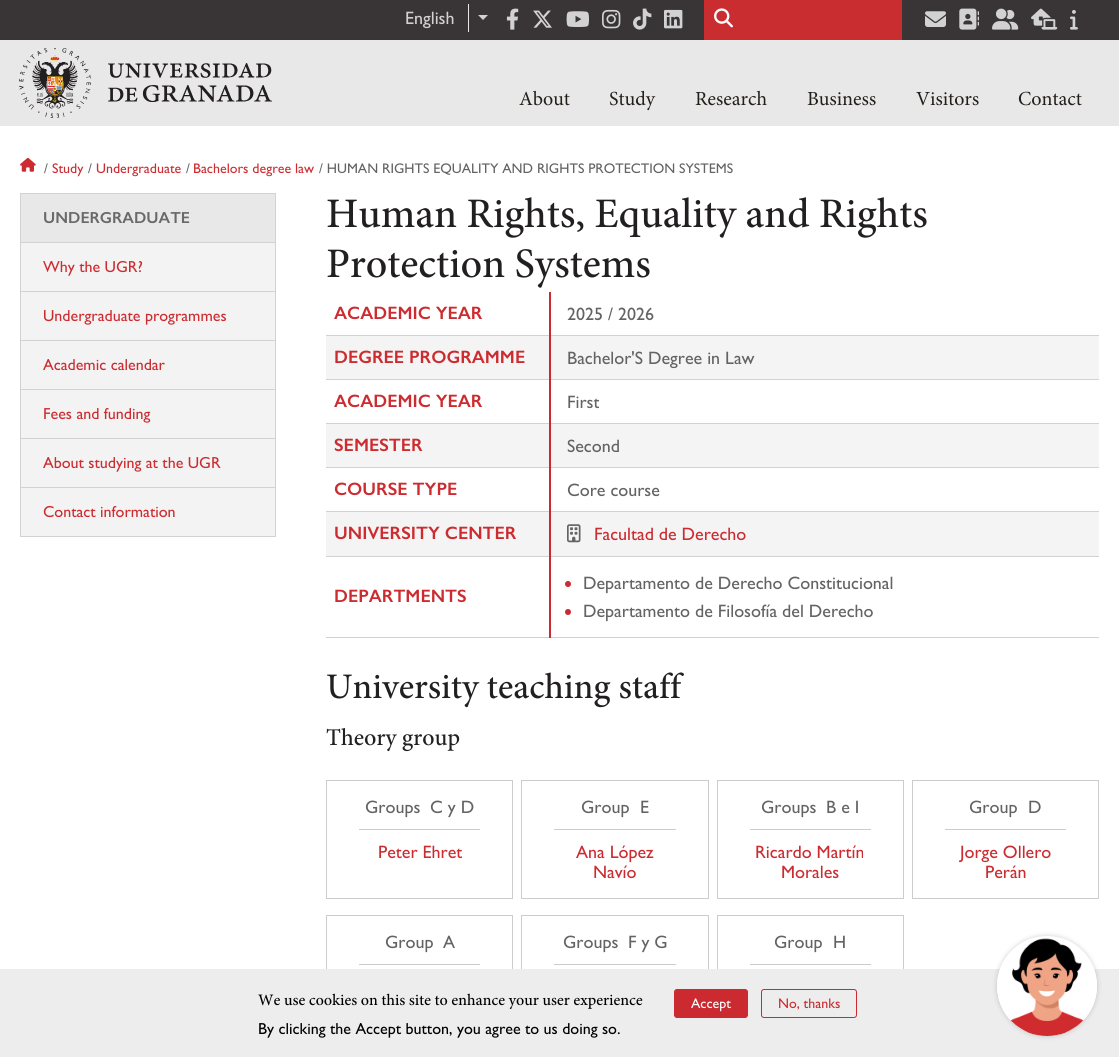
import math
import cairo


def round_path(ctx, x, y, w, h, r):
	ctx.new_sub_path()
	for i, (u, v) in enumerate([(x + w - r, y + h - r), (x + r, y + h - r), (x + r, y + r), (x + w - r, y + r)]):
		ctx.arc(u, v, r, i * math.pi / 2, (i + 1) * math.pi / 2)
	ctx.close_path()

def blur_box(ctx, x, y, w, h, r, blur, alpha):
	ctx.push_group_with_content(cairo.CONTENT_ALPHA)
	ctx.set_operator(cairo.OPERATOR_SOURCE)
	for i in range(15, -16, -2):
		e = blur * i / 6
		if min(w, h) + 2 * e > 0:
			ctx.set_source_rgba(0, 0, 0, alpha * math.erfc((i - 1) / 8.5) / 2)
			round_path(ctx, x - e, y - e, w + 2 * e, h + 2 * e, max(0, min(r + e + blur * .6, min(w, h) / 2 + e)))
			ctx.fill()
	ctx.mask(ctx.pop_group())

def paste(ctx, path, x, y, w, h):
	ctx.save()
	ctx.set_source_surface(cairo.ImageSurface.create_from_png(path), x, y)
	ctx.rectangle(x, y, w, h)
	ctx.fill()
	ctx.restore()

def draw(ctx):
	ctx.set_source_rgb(1, 1, 1)
	ctx.paint()
	ctx.set_source_rgb(0.914, 0.91, 0.91)
	ctx.rectangle(0, 40, 1119, 86)
	ctx.fill()
	ctx.set_source_rgb(0.224, 0.208, 0.212)
	ctx.rectangle(0, 0, 1119, 40)
	ctx.fill()
	ctx.set_source_rgb(0.91, 0.91, 0.91)
	ctx.rectangle(468, 4, 1, 28)
	ctx.fill()
	ctx.select_font_face('Gill Sans')
	ctx.set_font_size(18)
	ctx.set_source_rgb(0.827, 0.824, 0.82)
	ctx.move_to(405, 24)
	ctx.show_text('English')
	ctx.new_path()
	ctx.move_to(478, 15)
	ctx.line_to(488, 15)
	ctx.line_to(483, 20)
	ctx.close_path()
	ctx.fill()
	paste(ctx, 'media/1.png', 506, 8, 13, 22)
	paste(ctx, 'media/2.png', 533, 10, 19, 18)
	paste(ctx, 'media/3.png', 566, 11, 23, 16)
	paste(ctx, 'media/4.png', 602, 9, 19, 20)
	paste(ctx, 'media/5.png', 633, 8, 19, 22)
	paste(ctx, 'media/6.png', 664, 9, 19, 20)
	ctx.set_source_rgb(0.792, 0.176, 0.188)
	ctx.rectangle(704, 0, 198, 40)
	ctx.fill()
	paste(ctx, 'media/7.png', 714, 8, 19, 20)
	paste(ctx, 'media/8.png', 925, 11, 21, 16)
	paste(ctx, 'media/9.png', 959, 8, 20, 22)
	paste(ctx, 'media/10.png', 992, 8, 27, 22)
	paste(ctx, 'media/11.png', 1031, 8, 27, 22)
	paste(ctx, 'media/12.png', 1070, 10, 8, 20)
	paste(ctx, 'media/13.png', 19, 48, 253, 70)
	paste(ctx, 'media/14.png', 519, 90, 51, 16)
	paste(ctx, 'media/15.png', 609, 90, 47, 21)
	paste(ctx, 'media/16.png', 695, 90, 72, 16)
	paste(ctx, 'media/17.png', 807, 92, 69, 14)
	paste(ctx, 'media/18.png', 916, 92, 63, 14)
	paste(ctx, 'media/19.png', 1018, 91, 64, 15)
	paste(ctx, 'media/20.png', 20, 158, 16, 14)
	ctx.set_font_size(14)
	ctx.set_source_rgb(0.396, 0.384, 0.384)
	ctx.move_to(44, 173)
	ctx.show_text('/')
	ctx.set_source_rgb(0.8, 0.173, 0.188)
	ctx.move_to(52, 173)
	ctx.show_text('Study')
	ctx.set_source_rgb(0.396, 0.384, 0.384)
	ctx.move_to(88, 173)
	ctx.show_text('/')
	ctx.set_source_rgb(0.8, 0.173, 0.188)
	ctx.move_to(96, 173)
	ctx.show_text('Undergraduate')
	ctx.set_source_rgb(0.396, 0.384, 0.384)
	ctx.move_to(186, 173)
	ctx.show_text('/')
	ctx.set_source_rgb(0.8, 0.173, 0.188)
	ctx.move_to(193, 173)
	ctx.show_text('Bachelors degree law')
	ctx.set_source_rgb(0.396, 0.384, 0.384)
	ctx.move_to(319, 173)
	ctx.show_text('/ HUMAN RIGHTS EQUALITY AND RIGHTS PROTECTION SYSTEMS')
	ctx.set_source_rgb(0.827, 0.824, 0.824)
	ctx.rectangle(20, 193, 256, 1)
	ctx.rectangle(275, 193, 1, 49)
	ctx.rectangle(20, 193, 1, 49)
	ctx.fill()
	ctx.set_source_rgb(0.91, 0.91, 0.91)
	ctx.rectangle(21, 194, 254, 48)
	ctx.fill()
	ctx.select_font_face('Gill Sans SemiBold')
	ctx.set_font_size(16)
	ctx.set_source_rgb(0.416, 0.408, 0.408)
	ctx.move_to(43, 223)
	ctx.show_text('UNDERGRADUATE')
	ctx.set_source_rgb(0.957, 0.953, 0.953)
	ctx.rectangle(21, 243, 254, 48)
	ctx.fill()
	ctx.set_source_rgb(0.827, 0.824, 0.824)
	ctx.rectangle(20, 242, 256, 1)
	ctx.rectangle(275, 242, 1, 49)
	ctx.rectangle(20, 242, 1, 49)
	ctx.fill()
	ctx.select_font_face('Gill Sans')
	ctx.set_source_rgb(0.8, 0.173, 0.188)
	ctx.move_to(43, 272)
	ctx.show_text('Why the UGR?')
	ctx.set_source_rgb(0.957, 0.953, 0.953)
	ctx.rectangle(21, 292, 254, 48)
	ctx.fill()
	ctx.set_source_rgb(0.827, 0.824, 0.824)
	ctx.rectangle(20, 291, 256, 1)
	ctx.rectangle(275, 291, 1, 49)
	ctx.rectangle(20, 291, 1, 49)
	ctx.fill()
	ctx.set_source_rgb(0.8, 0.173, 0.188)
	ctx.move_to(43, 321)
	ctx.show_text('Undergraduate programmes')
	ctx.set_source_rgb(0.957, 0.953, 0.953)
	ctx.rectangle(21, 341, 254, 48)
	ctx.fill()
	ctx.set_source_rgb(0.827, 0.824, 0.824)
	ctx.rectangle(20, 340, 256, 1)
	ctx.rectangle(275, 340, 1, 49)
	ctx.rectangle(20, 340, 1, 49)
	ctx.fill()
	ctx.set_source_rgb(0.8, 0.173, 0.188)
	ctx.move_to(43, 370)
	ctx.show_text('Academic calendar')
	ctx.set_source_rgb(0.957, 0.953, 0.953)
	ctx.rectangle(21, 390, 254, 48)
	ctx.fill()
	ctx.set_source_rgb(0.827, 0.824, 0.824)
	ctx.rectangle(20, 389, 256, 1)
	ctx.rectangle(275, 389, 1, 49)
	ctx.rectangle(20, 389, 1, 49)
	ctx.fill()
	ctx.set_source_rgb(0.8, 0.173, 0.188)
	ctx.move_to(43, 419)
	ctx.show_text('Fees and funding')
	ctx.set_source_rgb(0.957, 0.953, 0.953)
	ctx.rectangle(21, 439, 254, 48)
	ctx.fill()
	ctx.set_source_rgb(0.827, 0.824, 0.824)
	ctx.rectangle(20, 438, 256, 1)
	ctx.rectangle(275, 438, 1, 49)
	ctx.rectangle(20, 438, 1, 49)
	ctx.fill()
	ctx.set_source_rgb(0.8, 0.173, 0.188)
	ctx.move_to(43, 468)
	ctx.show_text('About studying at the UGR')
	ctx.set_source_rgb(0.957, 0.953, 0.953)
	ctx.rectangle(20.5, 487.5, 255, 49)
	ctx.fill_preserve()
	ctx.set_source_rgb(0.827, 0.824, 0.824)
	ctx.set_line_width(1)
	ctx.stroke()
	ctx.set_source_rgb(0.8, 0.173, 0.188)
	ctx.move_to(43, 517)
	ctx.show_text('Contact information')
	paste(ctx, 'media/21.png', 327, 197, 600, 41)
	paste(ctx, 'media/22.png', 327, 249, 323, 39)
	ctx.set_source_rgb(0.827, 0.824, 0.824)
	ctx.rectangle(326, 335, 773, 1)
	ctx.fill()
	ctx.select_font_face('Gill Sans SemiBold')
	ctx.set_font_size(18)
	ctx.set_source_rgb(0.8, 0.173, 0.188)
	ctx.move_to(334, 319)
	ctx.show_text('ACADEMIC YEAR')
	ctx.select_font_face('Gill Sans')
	ctx.set_source_rgb(0.396, 0.384, 0.384)
	ctx.move_to(567, 320)
	ctx.show_text('2025 / 2026')
	ctx.set_source_rgb(0.957, 0.957, 0.957)
	ctx.rectangle(326, 336, 773, 43)
	ctx.fill()
	ctx.set_source_rgb(0.827, 0.824, 0.824)
	ctx.rectangle(326, 379, 773, 1)
	ctx.fill()
	ctx.select_font_face('Gill Sans SemiBold')
	ctx.set_source_rgb(0.8, 0.173, 0.188)
	ctx.move_to(334, 363)
	ctx.show_text('DEGREE PROGRAMME')
	ctx.select_font_face('Gill Sans')
	ctx.set_source_rgb(0.396, 0.384, 0.384)
	ctx.move_to(567, 364)
	ctx.show_text('Bachelor\'S Degree in Law')
	ctx.set_source_rgb(0.827, 0.824, 0.824)
	ctx.rectangle(326, 423, 773, 1)
	ctx.fill()
	ctx.select_font_face('Gill Sans SemiBold')
	ctx.set_source_rgb(0.8, 0.173, 0.188)
	ctx.move_to(334, 407)
	ctx.show_text('ACADEMIC YEAR')
	ctx.select_font_face('Gill Sans')
	ctx.set_source_rgb(0.396, 0.384, 0.384)
	ctx.move_to(567, 408)
	ctx.show_text('First')
	ctx.set_source_rgb(0.957, 0.957, 0.957)
	ctx.rectangle(326, 424, 773, 43)
	ctx.fill()
	ctx.set_source_rgb(0.827, 0.824, 0.824)
	ctx.rectangle(326, 467, 773, 1)
	ctx.fill()
	ctx.select_font_face('Gill Sans SemiBold')
	ctx.set_source_rgb(0.8, 0.173, 0.188)
	ctx.move_to(334, 451)
	ctx.show_text('SEMESTER')
	ctx.select_font_face('Gill Sans')
	ctx.set_source_rgb(0.396, 0.384, 0.384)
	ctx.move_to(567, 452)
	ctx.show_text('Second')
	ctx.set_source_rgb(0.827, 0.824, 0.824)
	ctx.rectangle(326, 511, 773, 1)
	ctx.fill()
	ctx.select_font_face('Gill Sans SemiBold')
	ctx.set_source_rgb(0.8, 0.173, 0.188)
	ctx.move_to(334, 495)
	ctx.show_text('COURSE TYPE')
	ctx.select_font_face('Gill Sans')
	ctx.set_source_rgb(0.396, 0.384, 0.384)
	ctx.move_to(567, 496)
	ctx.show_text('Core course')
	ctx.set_source_rgb(0.957, 0.957, 0.957)
	ctx.rectangle(326, 512, 773, 44)
	ctx.fill()
	ctx.set_source_rgb(0.827, 0.824, 0.824)
	ctx.rectangle(326, 556, 773, 1)
	ctx.fill()
	ctx.select_font_face('Gill Sans SemiBold')
	ctx.set_source_rgb(0.8, 0.173, 0.188)
	ctx.move_to(334, 539)
	ctx.show_text('UNIVERSITY CENTER')
	paste(ctx, 'media/23.png', 567, 524, 14, 19)
	ctx.select_font_face('Gill Sans')
	ctx.move_to(594, 540)
	ctx.show_text('Facultad de Derecho')
	ctx.set_source_rgb(0.827, 0.824, 0.824)
	ctx.rectangle(326, 637, 773, 1)
	ctx.fill()
	ctx.set_source_rgb(0.796, 0.165, 0.192)
	ctx.rectangle(549, 292, 2, 346)
	ctx.fill()
	ctx.select_font_face('Gill Sans SemiBold')
	ctx.set_source_rgb(0.8, 0.173, 0.188)
	ctx.move_to(334, 602)
	ctx.show_text('DEPARTMENTS')
	ctx.set_source_rgb(0.796, 0.165, 0.192)
	ctx.new_path()
	ctx.arc(568, 584, 3, 0, 2 * math.pi)
	ctx.fill()
	ctx.select_font_face('Gill Sans')
	ctx.set_source_rgb(0.396, 0.384, 0.384)
	ctx.move_to(583, 589)
	ctx.show_text('Departamento de Derecho Constitucional')
	ctx.set_source_rgb(0.796, 0.165, 0.192)
	ctx.new_path()
	ctx.arc(568, 612, 3, 0, 2 * math.pi)
	ctx.fill()
	ctx.set_source_rgb(0.396, 0.384, 0.384)
	ctx.move_to(583, 617)
	ctx.show_text('Departamento de Filosofía del Derecho')
	paste(ctx, 'media/24.png', 327, 672, 357, 36)
	paste(ctx, 'media/25.png', 326, 728, 134, 24)
	ctx.rectangle(326.5, 780.5, 186, 118)
	ctx.set_source_rgb(0.8, 0.8, 0.8)
	ctx.stroke()
	ctx.rectangle(359, 829, 121, 1)
	ctx.fill()
	ctx.set_source_rgb(0.396, 0.384, 0.384)
	ctx.move_to(365, 813)
	ctx.show_text('Groups')
	ctx.move_to(430, 813)
	ctx.show_text('C y D')
	ctx.set_source_rgb(0.8, 0.173, 0.188)
	ctx.move_to(378, 858)
	ctx.show_text('Peter Ehret')
	ctx.rectangle(521.5, 780.5, 187, 118)
	ctx.set_source_rgb(0.8, 0.8, 0.8)
	ctx.stroke()
	ctx.rectangle(554, 829, 122, 1)
	ctx.fill()
	ctx.set_source_rgb(0.396, 0.384, 0.384)
	ctx.move_to(581, 813)
	ctx.show_text('Group')
	ctx.move_to(640, 813)
	ctx.show_text('E')
	ctx.set_source_rgb(0.8, 0.173, 0.188)
	ctx.move_to(576, 858)
	ctx.show_text('Ana López')
	ctx.move_to(593, 878)
	ctx.show_text('Navío')
	ctx.rectangle(717.5, 780.5, 186, 118)
	ctx.set_source_rgb(0.8, 0.8, 0.8)
	ctx.stroke()
	ctx.rectangle(750, 829, 121, 1)
	ctx.fill()
	ctx.set_source_rgb(0.396, 0.384, 0.384)
	ctx.move_to(761, 813)
	ctx.show_text('Groups')
	ctx.move_to(826, 813)
	ctx.show_text('B e I')
	ctx.set_source_rgb(0.8, 0.173, 0.188)
	ctx.move_to(755, 858)
	ctx.show_text('Ricardo Martín')
	ctx.move_to(781, 878)
	ctx.show_text('Morales')
	ctx.rectangle(912.5, 780.5, 186, 118)
	ctx.set_source_rgb(0.8, 0.8, 0.8)
	ctx.stroke()
	ctx.rectangle(945, 829, 121, 1)
	ctx.fill()
	ctx.set_source_rgb(0.396, 0.384, 0.384)
	ctx.move_to(969, 813)
	ctx.show_text('Group')
	ctx.move_to(1028, 813)
	ctx.show_text('D')
	ctx.set_source_rgb(0.8, 0.173, 0.188)
	ctx.move_to(960, 858)
	ctx.show_text('Jorge Ollero')
	ctx.move_to(985, 878)
	ctx.show_text('Perán')
	ctx.rectangle(326.5, 915.5, 186, 118)
	ctx.set_source_rgb(0.8, 0.8, 0.8)
	ctx.stroke()
	ctx.rectangle(359, 964, 121, 1)
	ctx.fill()
	ctx.set_source_rgb(0.396, 0.384, 0.384)
	ctx.move_to(385, 948)
	ctx.show_text('Group')
	ctx.move_to(443, 948)
	ctx.show_text('A')
	ctx.rectangle(521.5, 915.5, 187, 118)
	ctx.set_source_rgb(0.8, 0.8, 0.8)
	ctx.stroke()
	ctx.rectangle(554, 964, 122, 1)
	ctx.fill()
	ctx.set_source_rgb(0.396, 0.384, 0.384)
	ctx.move_to(563, 948)
	ctx.show_text('Groups')
	ctx.move_to(628, 948)
	ctx.show_text('F y G')
	ctx.rectangle(717.5, 915.5, 186, 118)
	ctx.set_source_rgb(0.8, 0.8, 0.8)
	ctx.stroke()
	ctx.rectangle(750, 964, 121, 1)
	ctx.fill()
	ctx.set_source_rgb(0.396, 0.384, 0.384)
	ctx.move_to(774, 948)
	ctx.show_text('Group')
	ctx.move_to(833, 948)
	ctx.show_text('H')
	ctx.set_source_rgb(0.929, 0.929, 0.929)
	ctx.rectangle(0, 969, 1119, 88)
	ctx.fill()
	ctx.set_source_rgb(0.796, 0.165, 0.192)
	round_path(ctx, 674.5, 989.5, 73, 28, 2.5)
	ctx.fill_preserve()
	ctx.stroke()
	ctx.set_font_size(14)
	ctx.set_source_rgb(0.996, 1, 1)
	ctx.move_to(691, 1008)
	ctx.show_text('Accept')
	round_path(ctx, 761.5, 989.5, 95, 28, 2.5)
	ctx.set_source_rgb(0.796, 0.165, 0.192)
	ctx.stroke()
	ctx.set_source_rgb(0.8, 0.173, 0.188)
	ctx.move_to(778, 1008)
	ctx.show_text('No, thanks')
	paste(ctx, 'media/26.png', 258, 993, 385, 16)
	ctx.set_font_size(16)
	ctx.set_source_rgb(0, 0, 0)
	ctx.move_to(258, 1034)
	ctx.show_text('By clicking the Accept button, you agree to us doing so.')
	ctx.set_source_rgb(0, 0, 0)
	blur_box(ctx, 997, 936, 100, 100, 50, 2.5, 0.2)
	ctx.set_source_rgb(1, 1, 1)
	ctx.arc(1047, 986, 50, 0, 2 * math.pi)
	ctx.fill()
	paste(ctx, 'media/27.png', 997, 938, 100, 98)


surface = cairo.ImageSurface(cairo.FORMAT_RGB24, 1119, 1057)
ctx = cairo.Context(surface)
options = cairo.FontOptions()
options.set_hint_metrics(cairo.HINT_METRICS_OFF)
options.set_hint_style(cairo.HINT_STYLE_NONE)
ctx.set_font_options(options)
ctx.set_miter_limit(4)
draw(ctx)
surface.write_to_png('image.png')
